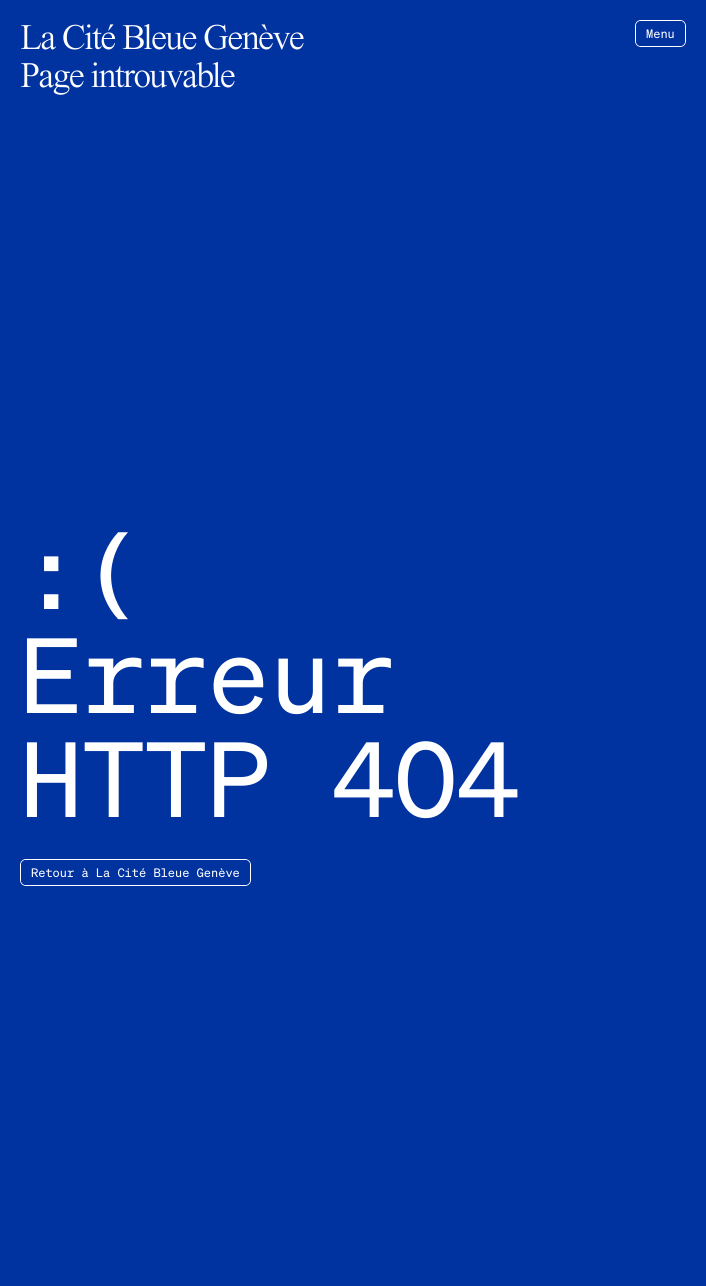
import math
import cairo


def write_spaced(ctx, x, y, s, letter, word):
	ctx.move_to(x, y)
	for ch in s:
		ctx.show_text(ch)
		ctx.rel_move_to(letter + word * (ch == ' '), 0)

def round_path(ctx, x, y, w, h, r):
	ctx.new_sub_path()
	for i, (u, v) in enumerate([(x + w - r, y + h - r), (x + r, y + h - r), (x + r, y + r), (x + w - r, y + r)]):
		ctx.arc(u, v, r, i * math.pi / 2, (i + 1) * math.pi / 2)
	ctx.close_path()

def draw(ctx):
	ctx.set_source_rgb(0, 0.196, 0.627)
	ctx.paint()
	ctx.select_font_face('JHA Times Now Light')
	ctx.set_font_size(36)
	ctx.set_source_rgb(1, 1, 1)
	write_spaced(ctx, 20, 49, 'La Cité Bleue Genève', -1.8, 0)
	round_path(ctx, 635.5, 20.5, 50, 26, 5.5)
	ctx.set_line_width(1)
	ctx.stroke()
	ctx.set_source_rgb(0, 0.196, 0.627)
	round_path(ctx, 636, 21, 49, 25, 5)
	ctx.fill()
	ctx.select_font_face('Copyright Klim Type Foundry')
	ctx.set_font_size(12)
	ctx.set_source_rgb(1, 1, 1)
	ctx.move_to(646, 38)
	ctx.show_text('Menu')
	ctx.select_font_face('JHA Times Now Light')
	ctx.set_font_size(36)
	write_spaced(ctx, 20, 87, 'Page introuvable', -1.8, 0)
	ctx.select_font_face('Copyright Klim Type Foundry')
	ctx.set_font_size(104)
	for x, y, s in [
		(20, 609, ':('),
		(20, 713, 'Erreur'),
		(20, 817, 'HTTP 404'),
	]:
		ctx.move_to(x, y)
		ctx.show_text(s)
	round_path(ctx, 20.5, 859.5, 230, 26, 5.5)
	ctx.stroke()
	ctx.set_source_rgb(0, 0.196, 0.627)
	round_path(ctx, 21, 860, 229, 25, 5)
	ctx.fill()
	ctx.set_font_size(12)
	ctx.set_source_rgb(1, 1, 1)
	ctx.move_to(31, 877)
	ctx.show_text('Retour à La Cité Bleue Genève')


surface = cairo.ImageSurface(cairo.FORMAT_RGB24, 706, 1286)
ctx = cairo.Context(surface)
options = cairo.FontOptions()
options.set_hint_metrics(cairo.HINT_METRICS_OFF)
options.set_hint_style(cairo.HINT_STYLE_NONE)
ctx.set_font_options(options)
ctx.set_miter_limit(4)
draw(ctx)
surface.write_to_png('image.png')
